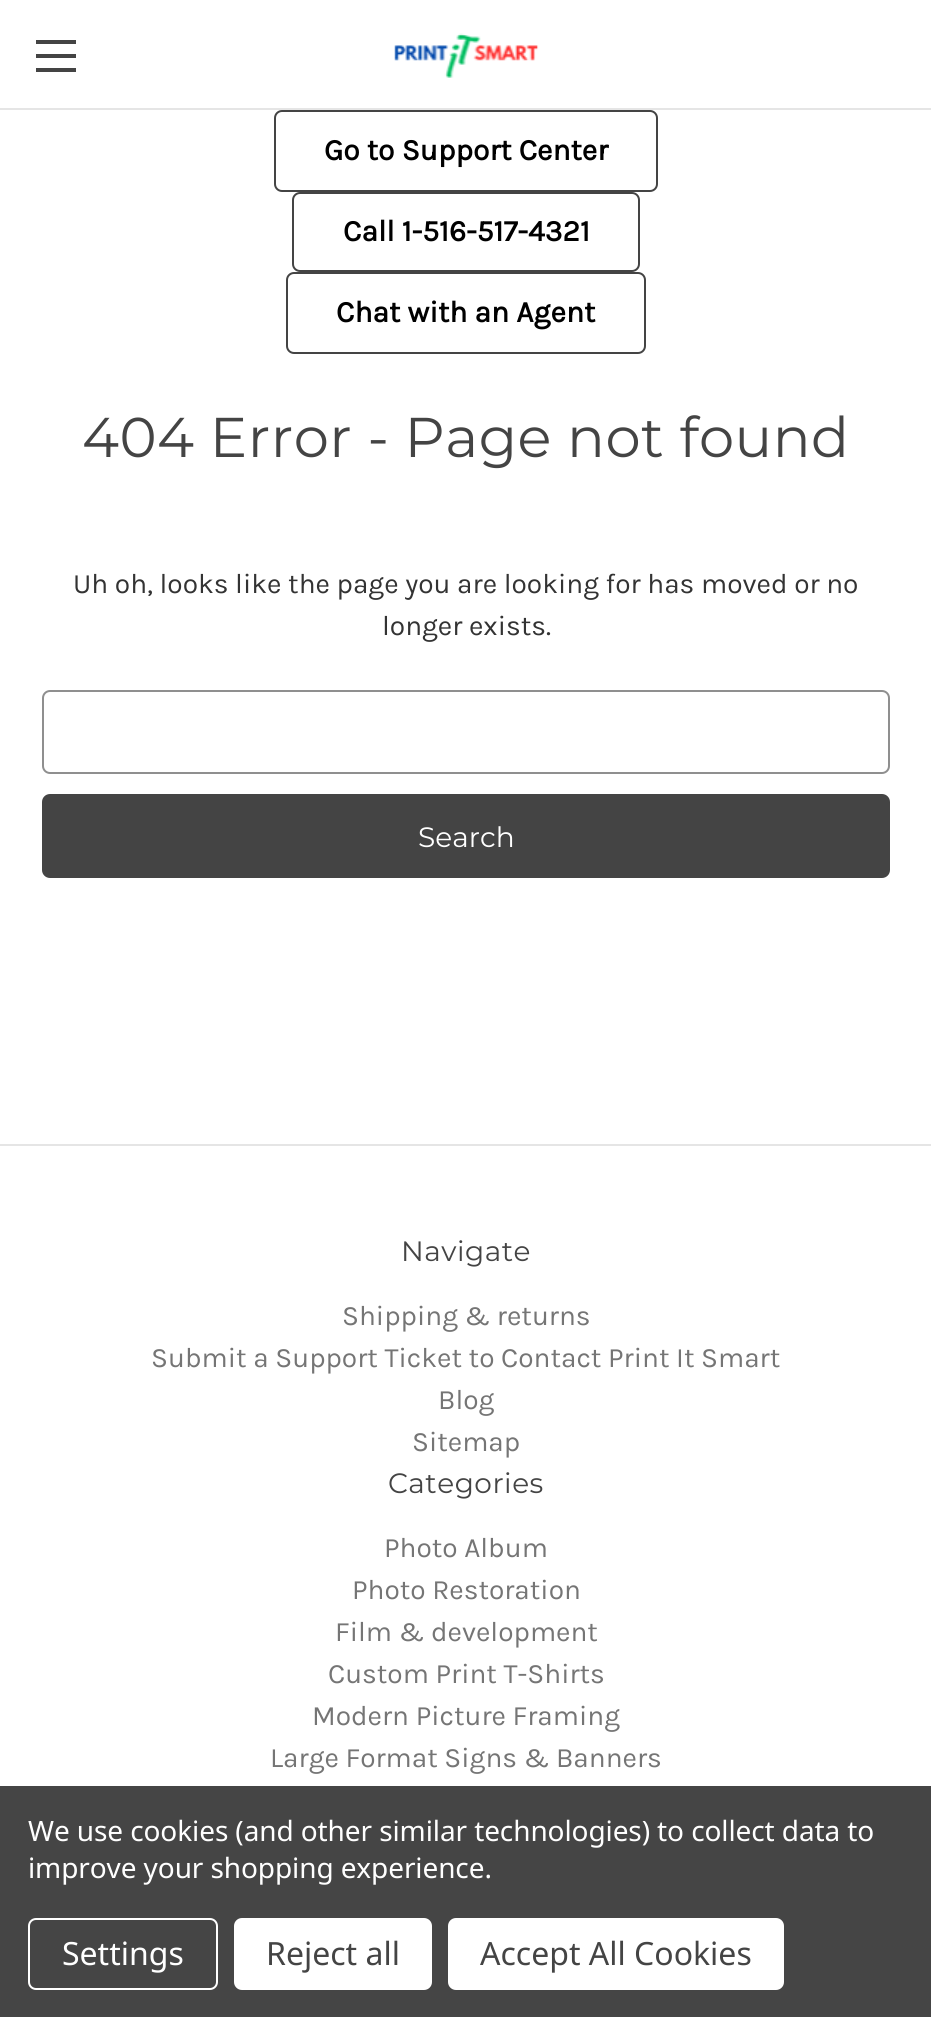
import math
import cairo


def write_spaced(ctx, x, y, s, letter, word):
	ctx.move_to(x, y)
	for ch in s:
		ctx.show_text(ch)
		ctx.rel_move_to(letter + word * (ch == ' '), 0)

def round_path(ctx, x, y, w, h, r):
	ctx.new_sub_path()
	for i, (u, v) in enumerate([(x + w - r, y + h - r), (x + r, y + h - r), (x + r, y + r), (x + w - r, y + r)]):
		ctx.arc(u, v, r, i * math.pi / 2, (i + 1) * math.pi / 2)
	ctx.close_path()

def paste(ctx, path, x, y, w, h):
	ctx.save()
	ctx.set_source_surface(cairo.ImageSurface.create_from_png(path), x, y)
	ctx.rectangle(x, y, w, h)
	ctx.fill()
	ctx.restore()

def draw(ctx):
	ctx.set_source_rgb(1, 1, 1)
	ctx.paint()
	ctx.set_source_rgb(0.898, 0.898, 0.898)
	ctx.rectangle(0, 108, 931, 2)
	ctx.fill()
	ctx.set_source_rgb(0.267, 0.267, 0.267)
	ctx.rectangle(36, 54, 40, 4)
	ctx.rectangle(36, 40, 40, 4)
	ctx.rectangle(36, 68, 40, 4)
	ctx.fill()
	paste(ctx, 'media/1.png', 394, 33, 145, 45)
	round_path(ctx, 275, 111, 382, 80, 7)
	ctx.stroke()
	ctx.select_font_face('Karla', cairo.FONT_SLANT_NORMAL, cairo.FONT_WEIGHT_BOLD)
	ctx.set_font_size(30)
	ctx.set_source_rgb(0, 0, 0)
	ctx.move_to(324, 160)
	ctx.show_text('Go to Support Center')
	round_path(ctx, 293, 193, 346, 78, 7)
	ctx.set_source_rgb(0.267, 0.267, 0.267)
	ctx.stroke()
	ctx.set_source_rgb(0, 0, 0)
	ctx.move_to(343, 241)
	ctx.show_text('Call 1-516-517-4321')
	round_path(ctx, 287, 273, 358, 80, 7)
	ctx.set_source_rgb(0.267, 0.267, 0.267)
	ctx.stroke()
	ctx.set_source_rgb(0, 0, 0)
	ctx.move_to(336, 322)
	ctx.show_text('Chat with an Agent')
	ctx.select_font_face('Montserrat')
	ctx.set_font_size(56)
	ctx.set_source_rgb(0.267, 0.267, 0.267)
	write_spaced(ctx, 82, 457, '404 Error - Page not found', 0.5, 0)
	ctx.select_font_face('Karla')
	ctx.set_font_size(28)
	ctx.set_source_rgb(0.2, 0.2, 0.2)
	ctx.move_to(73, 593)
	ctx.show_text('Uh oh, looks like the page you are looking for has moved or no')
	ctx.move_to(382, 635)
	ctx.show_text('longer exists.')
	round_path(ctx, 43, 691, 846, 82, 7)
	ctx.set_source_rgb(0.561, 0.561, 0.561)
	ctx.stroke()
	ctx.set_source_rgb(0.267, 0.267, 0.267)
	round_path(ctx, 43, 795, 846, 82, 7)
	ctx.fill_preserve()
	ctx.stroke()
	ctx.select_font_face('Montserrat')
	ctx.set_source_rgb(1, 1, 1)
	ctx.move_to(418, 847)
	ctx.show_text('Search')
	ctx.set_source_rgb(0.898, 0.898, 0.898)
	ctx.rectangle(0, 1144, 931, 2)
	ctx.fill()
	ctx.set_source_rgb(0.267, 0.267, 0.267)
	write_spaced(ctx, 401, 1261, 'Navigate', 0.5, 0)
	ctx.select_font_face('Karla')
	ctx.set_source_rgb(0.459, 0.459, 0.459)
	for x, y, s in [
		(342, 1325, 'Shipping & returns'),
		(151, 1367, 'Submit a Support Ticket to Contact Print It Smart'),
		(438, 1409, 'Blog'),
		(412, 1451, 'Sitemap'),
	]:
		ctx.move_to(x, y)
		ctx.show_text(s)
	ctx.select_font_face('Montserrat')
	ctx.set_source_rgb(0.267, 0.267, 0.267)
	write_spaced(ctx, 388, 1493, 'Categories', 0.5, 0)
	ctx.select_font_face('Karla')
	ctx.set_source_rgb(0.459, 0.459, 0.459)
	for x, y, s in [
		(384, 1557, 'Photo Album'),
		(352, 1599, 'Photo Restoration'),
		(335, 1641, 'Film & development'),
		(328, 1683, 'Custom Print T-Shirts'),
		(312, 1725, 'Modern Picture Framing'),
		(270, 1767, 'Large Format Signs & Banners'),
	]:
		ctx.move_to(x, y)
		ctx.show_text(s)
	ctx.set_source_rgb(0.271, 0.271, 0.271)
	ctx.rectangle(0, 1786, 931, 231)
	ctx.fill()
	ctx.select_font_face('Noto Sans')
	ctx.set_source_rgb(1, 1, 1)
	write_spaced(ctx, 28, 1841, 'We use cookies (and other similar technologies) to collect data to', -0.1, 0)
	write_spaced(ctx, 28, 1878, 'improve your shopping experience.', -0.1, 0)
	round_path(ctx, 29, 1919, 188, 70, 7)
	ctx.stroke()
	ctx.set_font_size(32)
	ctx.move_to(62, 1965)
	ctx.show_text('Settings')
	round_path(ctx, 234, 1918, 198, 72, 8)
	ctx.fill()
	ctx.set_source_rgb(0.267, 0.267, 0.267)
	ctx.move_to(266, 1965)
	ctx.show_text('Reject all')
	ctx.set_source_rgb(1, 1, 1)
	round_path(ctx, 448, 1918, 336, 72, 8)
	ctx.fill()
	ctx.set_source_rgb(0.267, 0.267, 0.267)
	ctx.move_to(480, 1965)
	ctx.show_text('Accept All Cookies')


surface = cairo.ImageSurface(cairo.FORMAT_RGB24, 931, 2017)
ctx = cairo.Context(surface)
options = cairo.FontOptions()
options.set_hint_metrics(cairo.HINT_METRICS_OFF)
options.set_hint_style(cairo.HINT_STYLE_NONE)
ctx.set_font_options(options)
ctx.set_miter_limit(4)
draw(ctx)
surface.write_to_png('image.png')
